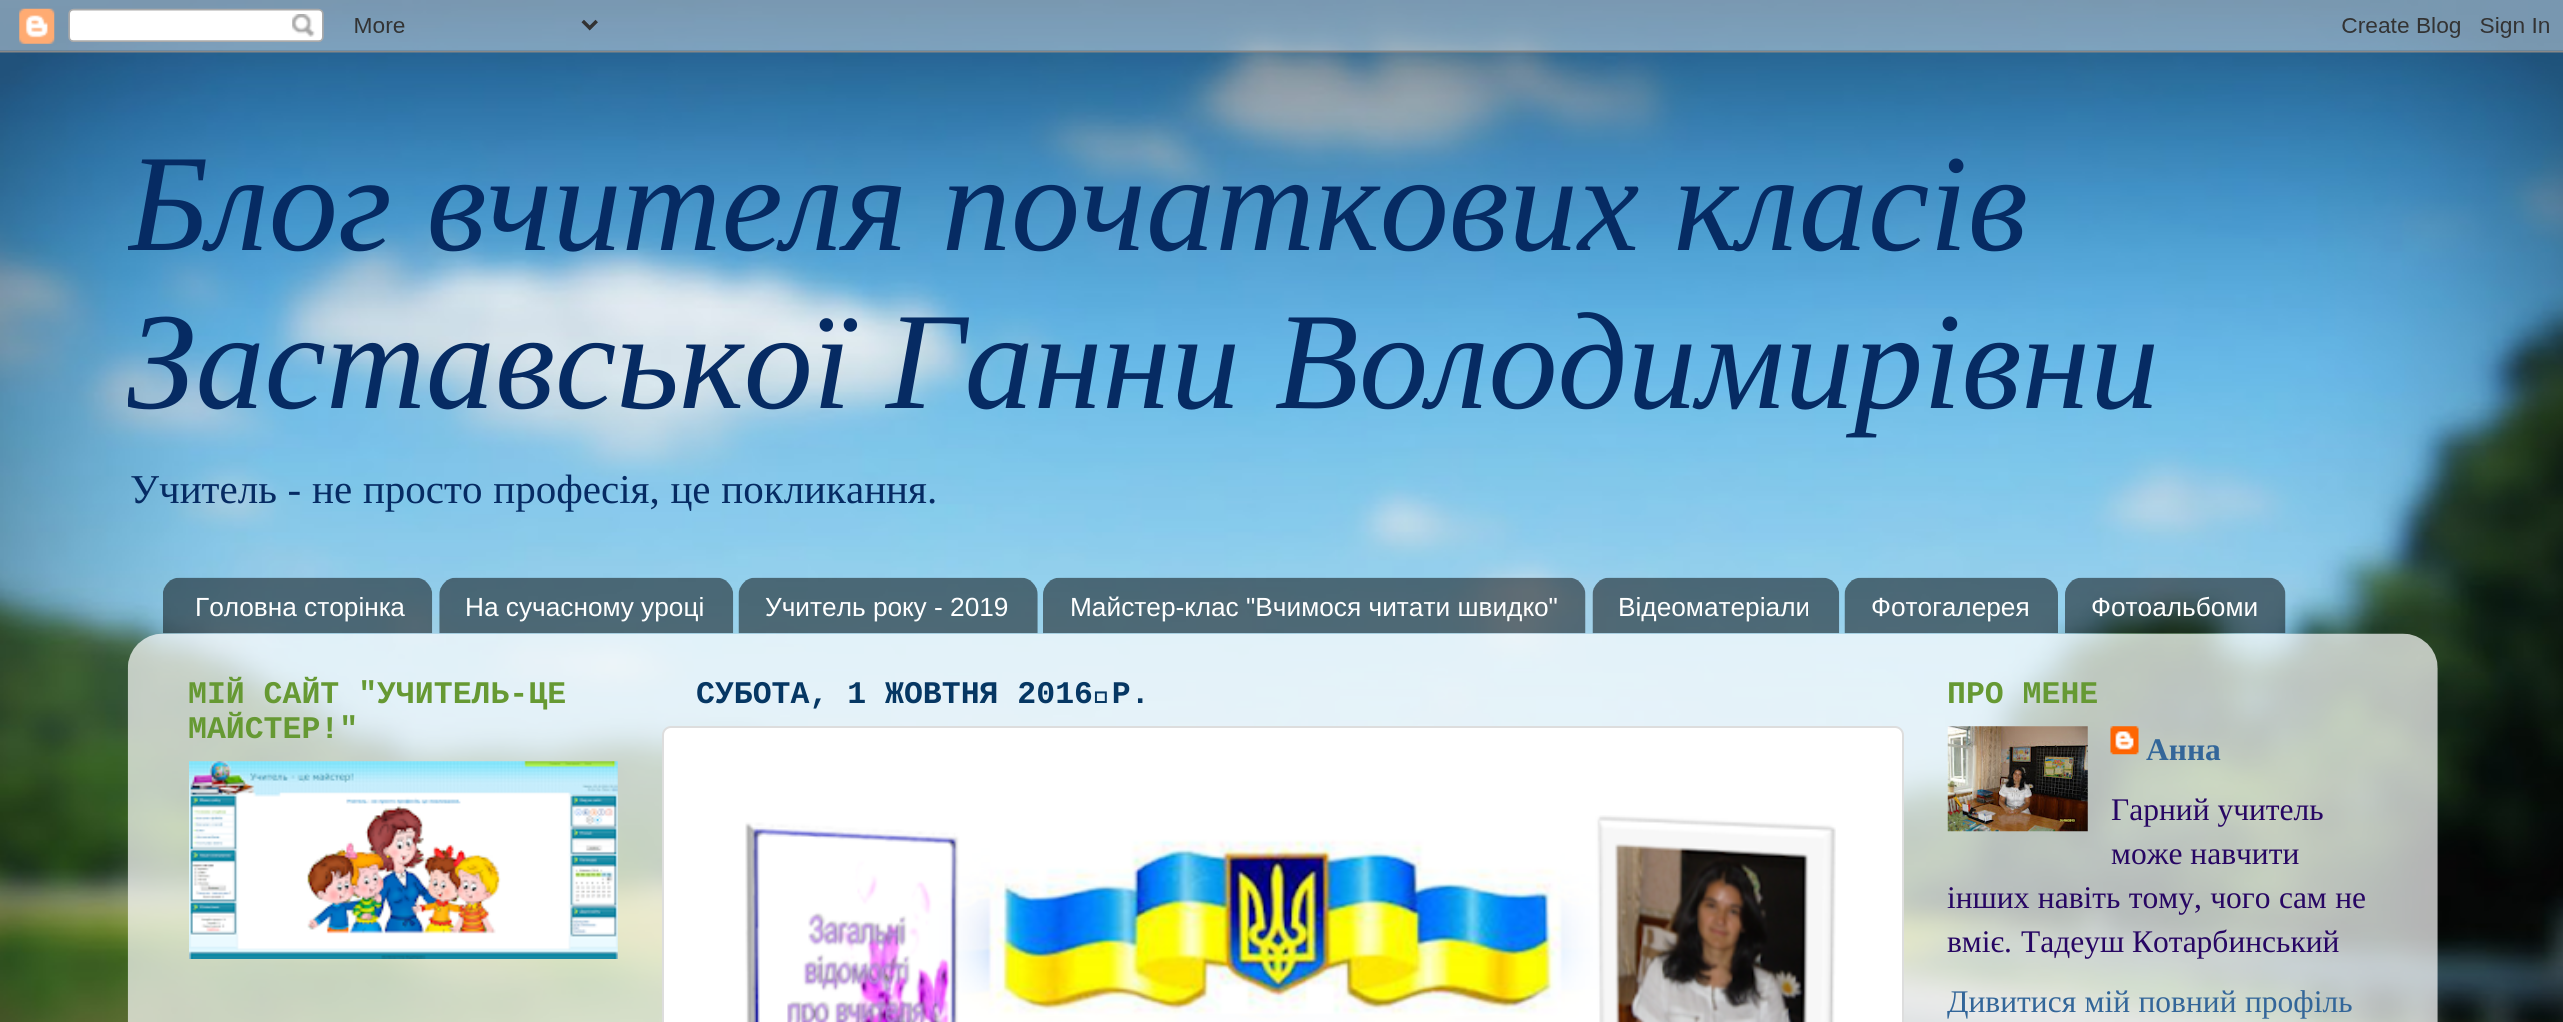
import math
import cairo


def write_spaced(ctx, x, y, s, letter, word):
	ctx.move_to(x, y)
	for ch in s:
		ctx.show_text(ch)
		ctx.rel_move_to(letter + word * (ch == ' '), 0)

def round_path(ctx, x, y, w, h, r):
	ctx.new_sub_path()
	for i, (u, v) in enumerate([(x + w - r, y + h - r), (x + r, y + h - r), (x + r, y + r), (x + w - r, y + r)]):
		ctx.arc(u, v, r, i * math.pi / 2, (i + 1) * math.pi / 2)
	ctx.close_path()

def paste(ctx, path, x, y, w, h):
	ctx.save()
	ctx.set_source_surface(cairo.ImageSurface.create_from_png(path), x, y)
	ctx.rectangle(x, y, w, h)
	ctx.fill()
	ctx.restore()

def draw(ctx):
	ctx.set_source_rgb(1, 1, 1)
	ctx.paint()
	paste(ctx, 'media/1.png', 0, 0, 2563, 1022)
	paste(ctx, 'media/2.png', 0, 0, 2563, 53)
	ctx.save()
	ctx.rectangle(128, 88, 2310, 474)
	ctx.clip()
	ctx.select_font_face('Liberation Serif', cairo.FONT_SLANT_ITALIC)
	ctx.set_font_size(138.25)
	ctx.set_source_rgb(0.027, 0.169, 0.388)
	ctx.move_to(127, 250)
	ctx.show_text('Блог вчителя початкових класів')
	ctx.move_to(127, 408)
	ctx.show_text('Заставської Ганни Володимирівни')
	ctx.restore()
	ctx.select_font_face('Liberation Serif')
	ctx.set_font_size(41)
	ctx.set_source_rgb(0.027, 0.169, 0.388)
	write_spaced(ctx, 130, 503, 'Учитель - не просто професія, це покликання.', 0, 0.5)
	paste(ctx, 'media/3.png', 163, 577, 270, 57)
	ctx.select_font_face('Liberation Sans')
	ctx.set_font_size(26.25)
	ctx.set_source_rgb(1, 1, 1)
	ctx.move_to(195, 616)
	ctx.show_text('Головна сторінка')
	paste(ctx, 'media/4.png', 439, 577, 295, 57)
	ctx.move_to(465, 616)
	ctx.show_text('На сучасному уроці')
	paste(ctx, 'media/5.png', 738, 577, 300, 57)
	ctx.move_to(765, 616)
	ctx.show_text('Учитель року - 2019')
	paste(ctx, 'media/6.png', 1043, 577, 543, 57)
	ctx.move_to(1070, 616)
	ctx.show_text('Майстер-клас "Вчимося читати швидко"')
	paste(ctx, 'media/7.png', 1592, 577, 248, 57)
	ctx.move_to(1618, 616)
	ctx.show_text('Відеоматеріали')
	paste(ctx, 'media/8.png', 1844, 577, 214, 57)
	ctx.move_to(1871, 616)
	ctx.show_text('Фотогалерея')
	paste(ctx, 'media/9.png', 2065, 577, 221, 57)
	ctx.move_to(2091, 616)
	ctx.show_text('Фотоальбоми')
	paste(ctx, 'media/10.png', 127, 633, 2311, 389)
	ctx.select_font_face('Liberation Mono', cairo.FONT_SLANT_NORMAL, cairo.FONT_WEIGHT_BOLD)
	ctx.set_font_size(31.5)
	ctx.set_source_rgb(0.4, 0.6, 0.2)
	ctx.move_to(188, 703)
	ctx.show_text('МІЙ САЙТ "УЧИТЕЛЬ-ЦЕ')
	ctx.move_to(188, 738)
	ctx.show_text('МАЙСТЕР!"')
	paste(ctx, 'media/11.png', 189, 761, 429, 198)
	ctx.set_source_rgb(0.027, 0.216, 0.388)
	ctx.move_to(696, 703)
	ctx.show_text('СУБОТА, 1 ЖОВТНЯ 2016 Р.')
	ctx.set_source_rgb(1, 1, 1)
	round_path(ctx, 663, 727, 1240, 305, 8)
	ctx.fill_preserve()
	ctx.set_source_rgb(0.867, 0.867, 0.867)
	ctx.stroke()
	paste(ctx, 'media/12.png', 745, 815, 1091, 207)
	ctx.set_source_rgb(0.4, 0.6, 0.2)
	ctx.move_to(1947, 703)
	ctx.show_text('ПРО МЕНЕ')
	paste(ctx, 'media/13.png', 1947, 726, 141, 106)
	paste(ctx, 'media/14.png', 2110, 726, 29, 29)
	ctx.select_font_face('Liberation Serif', cairo.FONT_SLANT_NORMAL, cairo.FONT_WEIGHT_BOLD)
	ctx.set_source_rgb(0.2, 0.4, 0.6)
	ctx.move_to(2146, 760)
	ctx.show_text('Анна')
	ctx.select_font_face('Liberation Serif')
	ctx.set_source_rgb(0.153, 0.027, 0.388)
	ctx.move_to(2111, 820)
	ctx.show_text('Гарний учитель')
	ctx.move_to(2111, 864)
	ctx.show_text('може навчити')
	write_spaced(ctx, 1947, 908, 'інших навіть тому, чого сам не', 0, 0.5)
	ctx.move_to(1947, 952)
	ctx.show_text('вміє.')
	ctx.move_to(2021, 952)
	ctx.show_text('Тадеуш Котарбинський')
	ctx.set_source_rgb(0.2, 0.4, 0.6)
	write_spaced(ctx, 1947, 1012, 'Дивитися мій повний профіль', 0, 0.5)


surface = cairo.ImageSurface(cairo.FORMAT_RGB24, 2563, 1022)
ctx = cairo.Context(surface)
options = cairo.FontOptions()
options.set_hint_metrics(cairo.HINT_METRICS_OFF)
options.set_hint_style(cairo.HINT_STYLE_NONE)
ctx.set_font_options(options)
ctx.set_miter_limit(4)
draw(ctx)
surface.write_to_png('image.png')
